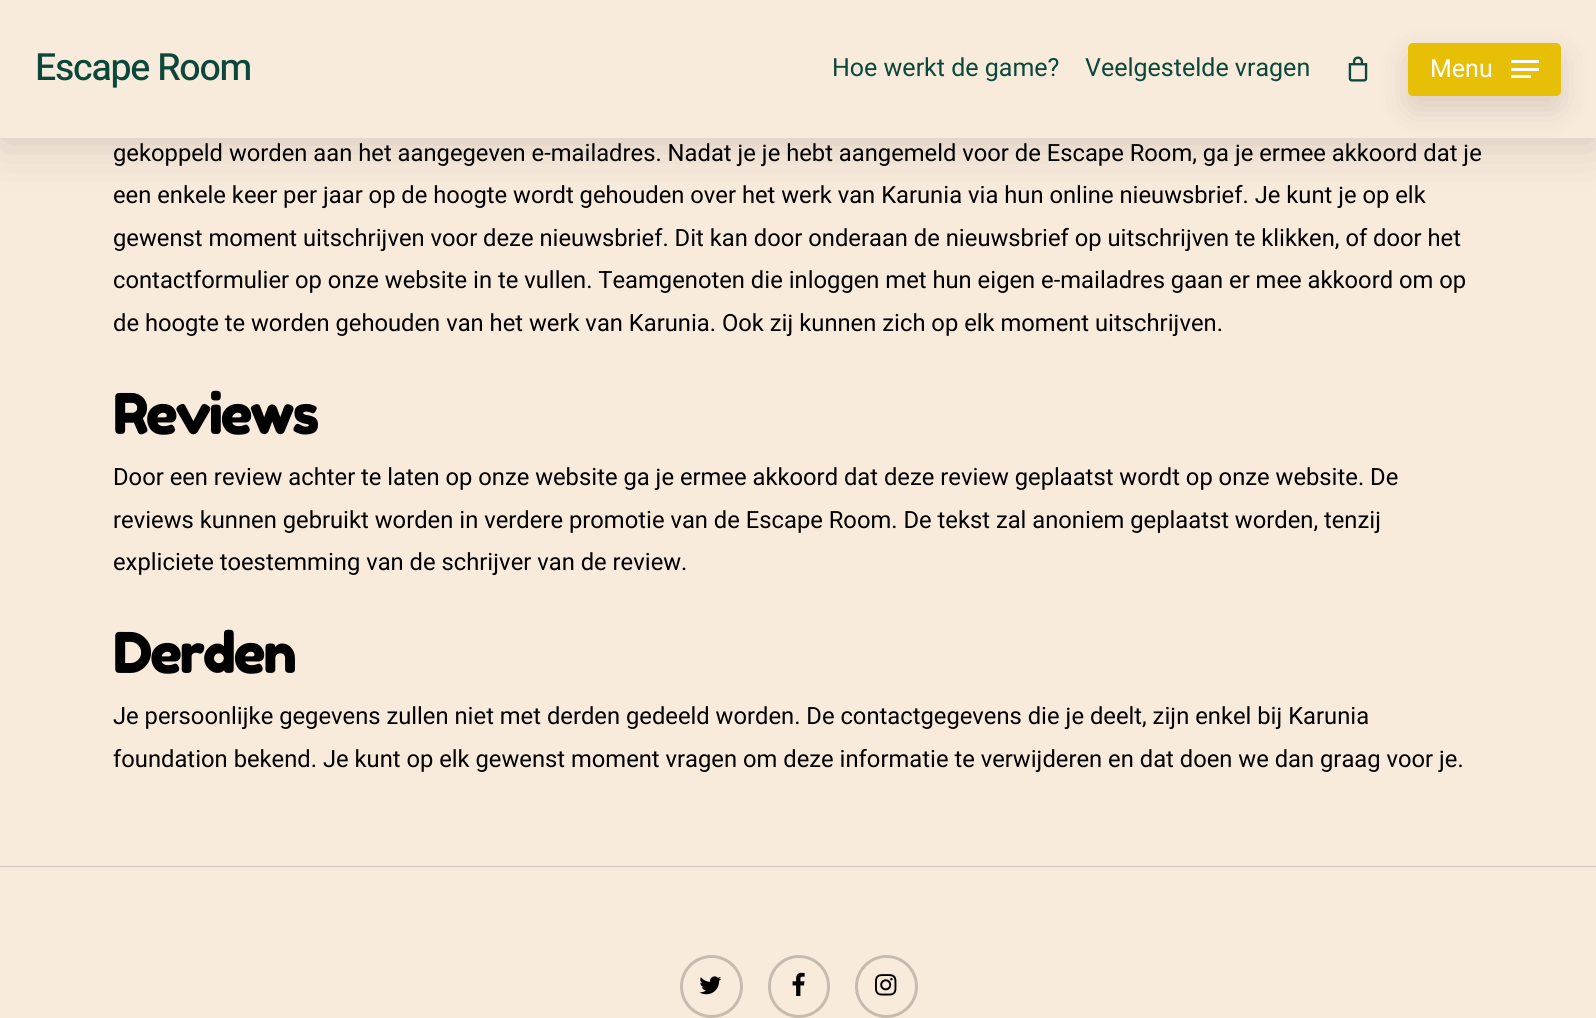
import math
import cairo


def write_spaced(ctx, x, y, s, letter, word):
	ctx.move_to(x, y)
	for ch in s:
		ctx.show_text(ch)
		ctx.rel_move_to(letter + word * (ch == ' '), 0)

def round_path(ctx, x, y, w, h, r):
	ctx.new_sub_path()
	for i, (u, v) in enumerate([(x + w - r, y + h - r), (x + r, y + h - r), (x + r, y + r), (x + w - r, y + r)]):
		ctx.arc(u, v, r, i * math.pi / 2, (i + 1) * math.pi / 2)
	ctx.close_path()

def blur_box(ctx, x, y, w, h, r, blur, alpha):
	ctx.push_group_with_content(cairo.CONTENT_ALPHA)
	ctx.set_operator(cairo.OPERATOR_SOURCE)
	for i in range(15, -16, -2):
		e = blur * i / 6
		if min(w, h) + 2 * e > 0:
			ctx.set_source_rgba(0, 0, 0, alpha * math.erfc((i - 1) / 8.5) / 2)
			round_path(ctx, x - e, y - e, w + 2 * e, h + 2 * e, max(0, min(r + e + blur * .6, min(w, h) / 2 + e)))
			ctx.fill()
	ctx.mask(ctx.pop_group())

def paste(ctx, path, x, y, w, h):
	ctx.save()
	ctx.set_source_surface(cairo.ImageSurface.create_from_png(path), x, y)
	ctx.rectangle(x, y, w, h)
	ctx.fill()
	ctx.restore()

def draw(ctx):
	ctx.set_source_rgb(0.973, 0.918, 0.863)
	ctx.paint()
	ctx.set_source_rgb(0, 0, 0)
	blur_box(ctx, 0, 4, 1596, 137, 0, 28, 0.15)
	ctx.set_source_rgb(0.973, 0.918, 0.863)
	ctx.rectangle(0, 0, 1596, 138)
	ctx.fill()
	ctx.select_font_face('Heebo Medium')
	ctx.set_font_size(37.5)
	ctx.set_source_rgb(0.043, 0.278, 0.227)
	write_spaced(ctx, 35, 80, 'Escape Room', -1.25, 0)
	ctx.select_font_face('Heebo')
	ctx.set_font_size(25)
	ctx.move_to(832, 76)
	ctx.show_text('Hoe werkt de game?')
	ctx.move_to(1085, 76)
	ctx.show_text('Veelgestelde vragen')
	paste(ctx, 'media/1.png', 1348, 56, 20, 26)
	ctx.set_source_rgb(0, 0, 0)
	blur_box(ctx, 1408, 55, 153, 54, 5, 15.5, 0.13)
	ctx.set_source_rgb(0.906, 0.749, 0.031)
	round_path(ctx, 1408, 43, 153, 53, 5)
	ctx.fill()
	ctx.set_source_rgb(1, 1, 1)
	ctx.move_to(1430, 77)
	ctx.show_text('Menu')
	ctx.rectangle(1511, 60, 28, 3)
	ctx.rectangle(1511, 75, 20, 3)
	ctx.rectangle(1511, 68, 28, 3)
	ctx.fill()
	ctx.set_font_size(23.75)
	ctx.set_source_rgb(0, 0, 0)
	for x, y, s in [
		(113, 161, 'gekoppeld worden aan het aangegeven e-mailadres. Nadat je je hebt aangemeld voor de Escape Room, ga je ermee akkoord dat je'),
		(113, 203, 'een enkele keer per jaar op de hoogte wordt gehouden over het werk van Karunia via hun online nieuwsbrief. Je kunt je op elk'),
		(113, 246, 'gewenst moment uitschrijven voor deze nieuwsbrief. Dit kan door onderaan de nieuwsbrief op uitschrijven te klikken, of door het'),
		(113, 288, 'contactformulier op onze website in te vullen. Teamgenoten die inloggen met hun eigen e-mailadres gaan er mee akkoord om op'),
		(113, 331, 'de hoogte te worden gehouden van het werk van Karunia. Ook zij kunnen zich op elk moment uitschrijven.'),
	]:
		ctx.move_to(x, y)
		ctx.show_text(s)
	ctx.select_font_face('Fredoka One')
	ctx.set_font_size(56)
	write_spaced(ctx, 113, 434, 'Reviews', -2.5, 0)
	ctx.select_font_face('Heebo')
	ctx.set_font_size(23.75)
	for x, y, s in [
		(113, 485, 'Door een review achter te laten op onze website ga je ermee akkoord dat deze review geplaatst wordt op onze website. De'),
		(113, 528, 'reviews kunnen gebruikt worden in verdere promotie van de Escape Room. De tekst zal anoniem geplaatst worden, tenzij'),
		(113, 570, 'expliciete toestemming van de schrijver van de review.'),
	]:
		ctx.move_to(x, y)
		ctx.show_text(s)
	ctx.select_font_face('Fredoka One')
	ctx.set_font_size(56)
	write_spaced(ctx, 113, 673, 'Derden', -2.5, 0)
	ctx.select_font_face('Heebo')
	ctx.set_font_size(23.75)
	ctx.move_to(113, 724)
	ctx.show_text('Je persoonlijke gegevens zullen niet met derden gedeeld worden. De contactgegevens die je deelt, zijn enkel bij Karunia')
	ctx.move_to(113, 767)
	ctx.show_text('foundation bekend. Je kunt op elk gewenst moment vragen om deze informatie te verwijderen en dat doen we dan graag voor je.')
	ctx.set_source_rgb(0.827, 0.776, 0.737)
	ctx.rectangle(0, 866, 1596, 1)
	ctx.fill()
	paste(ctx, 'media/2.png', 699, 976, 23, 19)
	ctx.arc(711.5, 986.5, 30, 0, 2 * math.pi)
	ctx.set_source_rgb(0.776, 0.733, 0.69)
	ctx.set_line_width(3)
	ctx.stroke()
	paste(ctx, 'media/3.png', 792, 972, 13, 24)
	round_path(ctx, 769.5, 956.5, 59, 60, 29.5)
	ctx.stroke()
	paste(ctx, 'media/4.png', 875, 974, 22, 22)
	ctx.arc(886.5, 986.5, 30, 0, 2 * math.pi)
	ctx.stroke()


surface = cairo.ImageSurface(cairo.FORMAT_RGB24, 1596, 1018)
ctx = cairo.Context(surface)
options = cairo.FontOptions()
options.set_hint_metrics(cairo.HINT_METRICS_OFF)
options.set_hint_style(cairo.HINT_STYLE_NONE)
ctx.set_font_options(options)
ctx.set_miter_limit(4)
draw(ctx)
surface.write_to_png('image.png')
